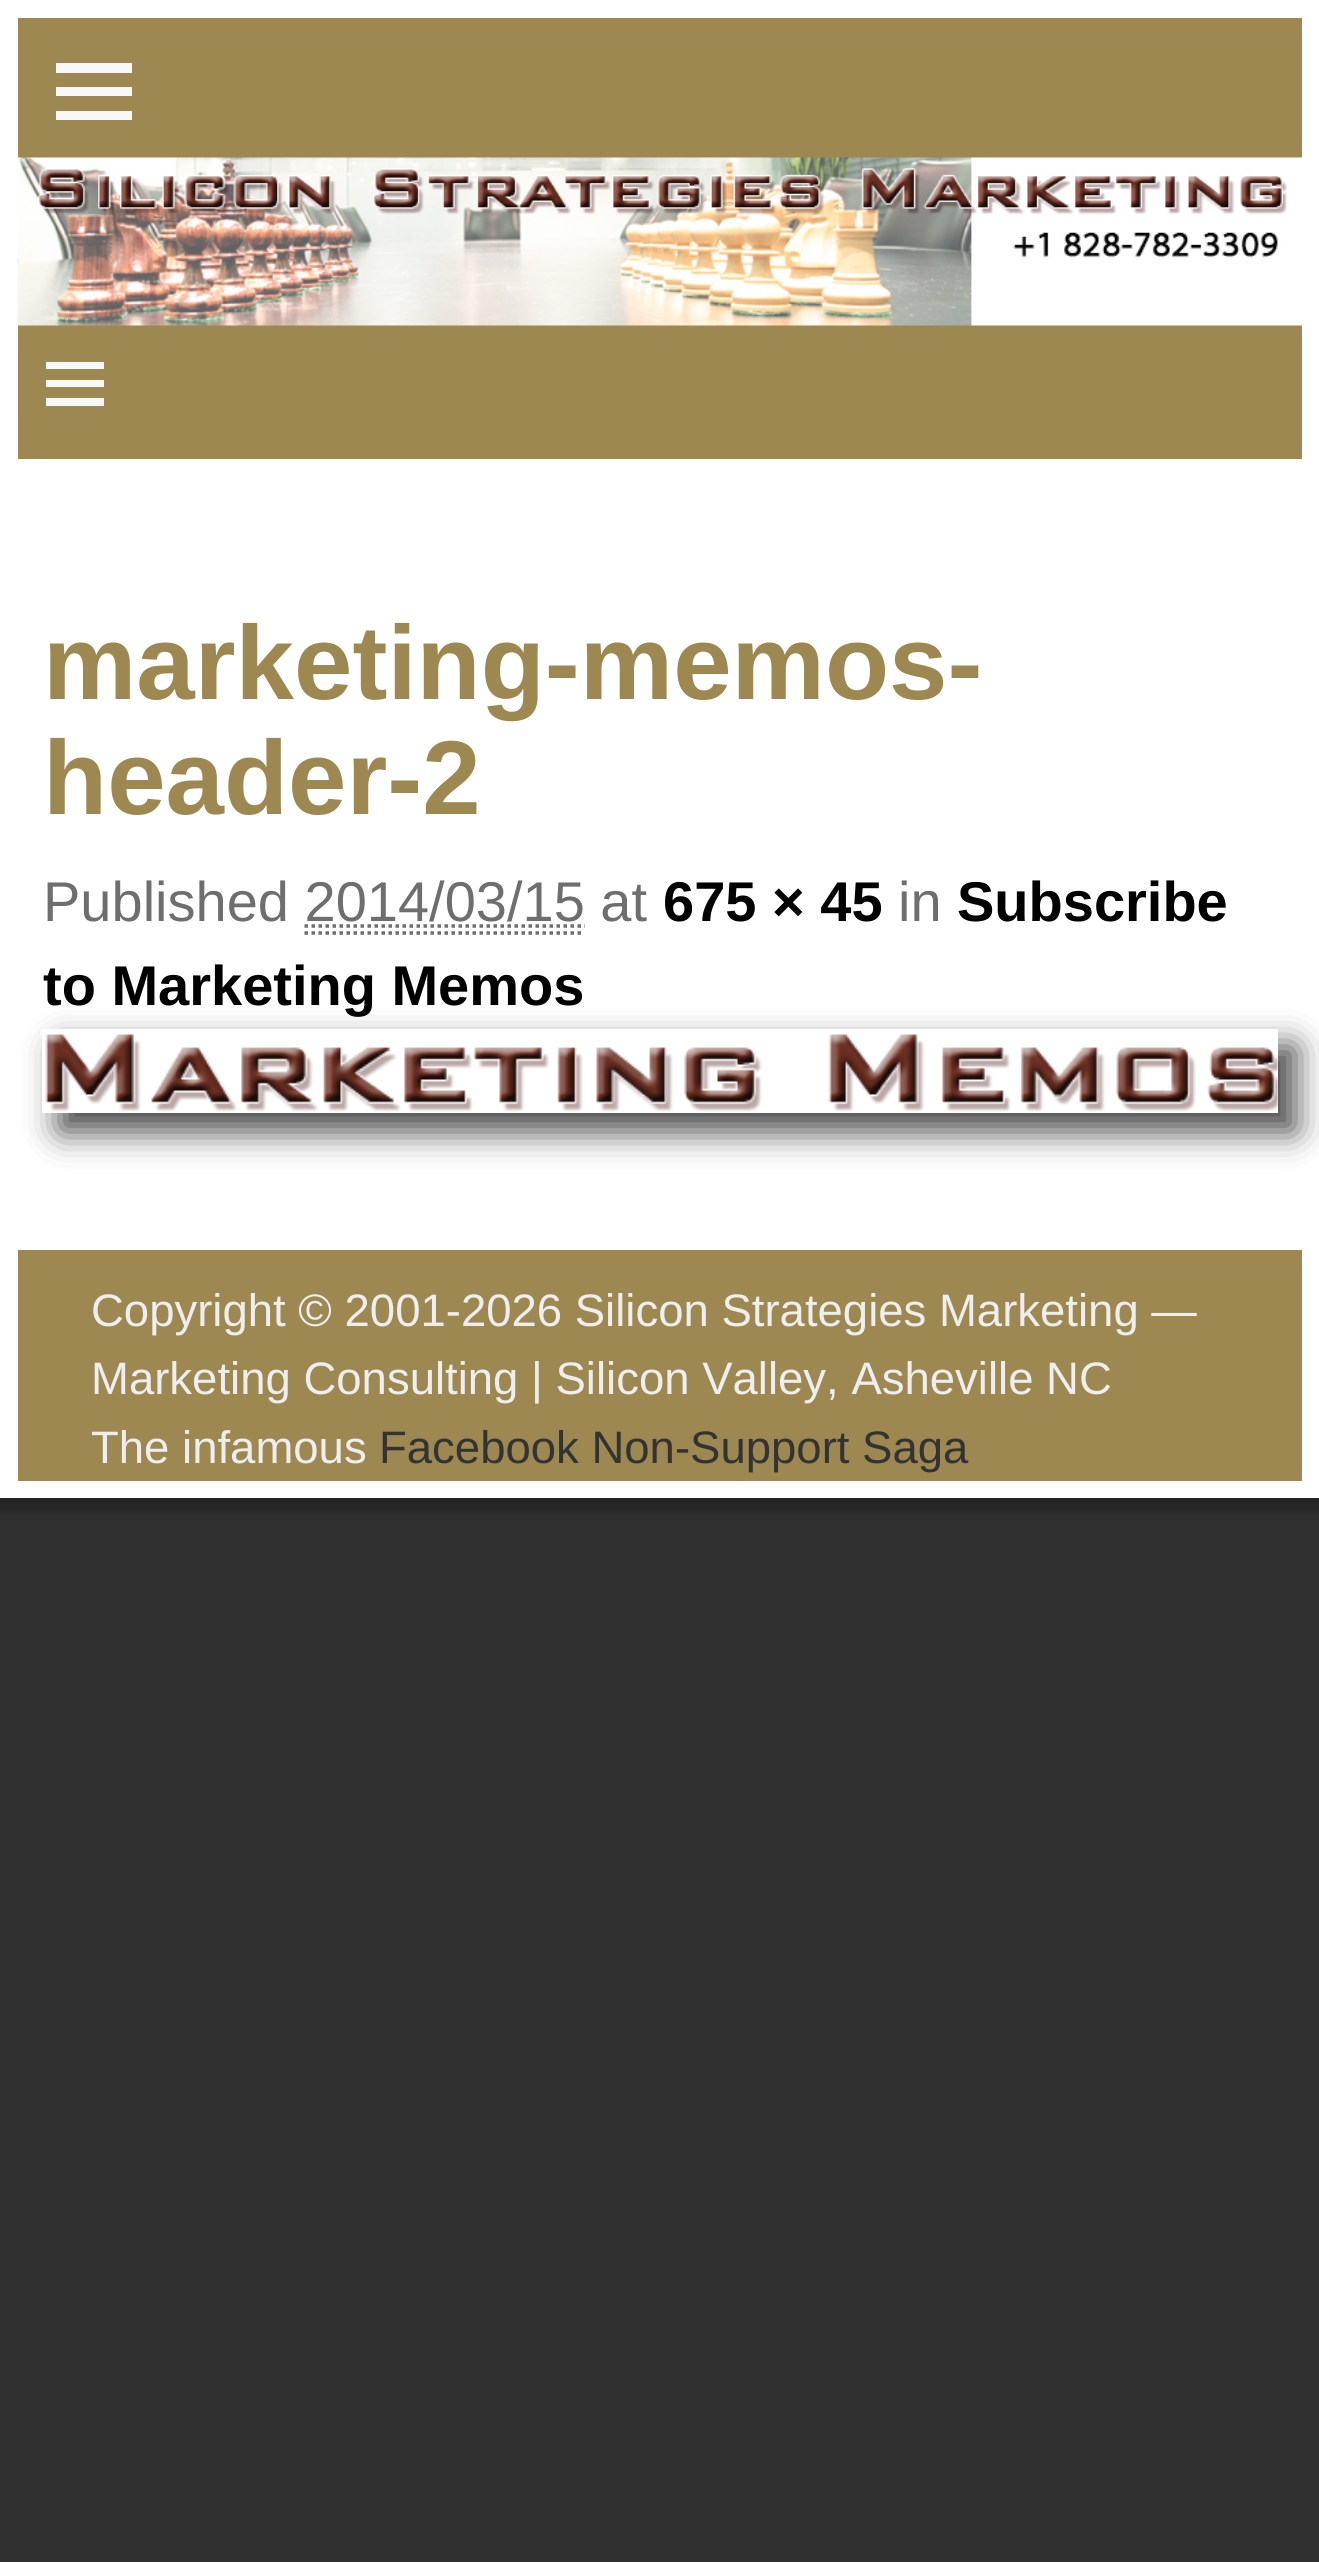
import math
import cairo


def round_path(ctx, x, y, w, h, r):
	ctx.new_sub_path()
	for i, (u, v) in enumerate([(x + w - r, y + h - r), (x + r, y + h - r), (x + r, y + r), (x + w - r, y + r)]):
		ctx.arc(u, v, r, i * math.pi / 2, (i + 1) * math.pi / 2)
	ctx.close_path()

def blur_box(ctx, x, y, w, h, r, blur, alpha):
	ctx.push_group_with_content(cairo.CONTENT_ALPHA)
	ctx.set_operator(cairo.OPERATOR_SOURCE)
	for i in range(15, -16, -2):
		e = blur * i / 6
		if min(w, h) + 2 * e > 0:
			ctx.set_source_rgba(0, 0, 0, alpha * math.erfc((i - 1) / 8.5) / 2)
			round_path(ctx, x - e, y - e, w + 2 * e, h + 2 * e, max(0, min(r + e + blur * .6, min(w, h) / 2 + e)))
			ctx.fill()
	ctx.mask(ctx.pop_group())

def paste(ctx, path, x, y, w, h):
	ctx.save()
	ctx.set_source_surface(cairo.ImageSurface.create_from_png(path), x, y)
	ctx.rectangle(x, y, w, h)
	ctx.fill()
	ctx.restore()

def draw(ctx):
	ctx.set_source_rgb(0.188, 0.188, 0.188)
	ctx.paint()
	ctx.set_source_rgb(0, 0, 0)
	blur_box(ctx, -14, -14, 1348, 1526, 0, 5, 0.25)
	ctx.set_source_rgb(1, 1, 1)
	ctx.rectangle(0, 0, 1319, 1498)
	ctx.fill()
	ctx.set_source_rgb(0.616, 0.533, 0.318)
	ctx.rectangle(18, 18, 1284, 441)
	ctx.fill()
	ctx.set_source_rgb(0.969, 0.969, 0.969)
	ctx.new_path()
	ctx.move_to(56, 120)
	ctx.line_to(56, 111)
	ctx.line_to(132, 111)
	ctx.line_to(132, 120)
	ctx.close_path()
	ctx.move_to(56, 63)
	ctx.line_to(132, 63)
	ctx.line_to(132, 73)
	ctx.line_to(56, 73)
	ctx.close_path()
	ctx.move_to(56, 96)
	ctx.line_to(56, 87)
	ctx.line_to(132, 87)
	ctx.line_to(132, 96)
	ctx.close_path()
	ctx.fill()
	paste(ctx, 'media/1.png', 17, 157, 1285, 169)
	ctx.new_path()
	ctx.move_to(46, 406)
	ctx.line_to(46, 398)
	ctx.line_to(104, 398)
	ctx.line_to(104, 406)
	ctx.close_path()
	ctx.move_to(46, 362)
	ctx.line_to(104, 362)
	ctx.line_to(104, 369)
	ctx.line_to(46, 369)
	ctx.close_path()
	ctx.move_to(46, 387)
	ctx.line_to(46, 380)
	ctx.line_to(104, 380)
	ctx.line_to(104, 387)
	ctx.close_path()
	ctx.fill()
	ctx.select_font_face('Liberation Sans', cairo.FONT_SLANT_NORMAL, cairo.FONT_WEIGHT_BOLD)
	ctx.set_font_size(105)
	ctx.set_source_rgb(0.616, 0.533, 0.318)
	ctx.move_to(43, 699)
	ctx.show_text('marketing-memos-')
	ctx.move_to(43, 814)
	ctx.show_text('header-2')
	ctx.select_font_face('Liberation Sans')
	ctx.set_font_size(56)
	ctx.set_source_rgb(0.431, 0.431, 0.431)
	ctx.move_to(43, 921)
	ctx.show_text('Published 2014/03/15 at')
	ctx.select_font_face('Liberation Sans', cairo.FONT_SLANT_NORMAL, cairo.FONT_WEIGHT_BOLD)
	ctx.set_source_rgb(0, 0, 0)
	ctx.move_to(663, 921)
	ctx.show_text('675 × 45')
	ctx.select_font_face('Liberation Sans')
	ctx.set_source_rgb(0.431, 0.431, 0.431)
	ctx.move_to(898, 921)
	ctx.show_text('in')
	ctx.select_font_face('Liberation Sans', cairo.FONT_SLANT_NORMAL, cairo.FONT_WEIGHT_BOLD)
	ctx.set_source_rgb(0, 0, 0)
	ctx.move_to(957, 921)
	ctx.show_text('Subscribe')
	ctx.new_path()
	ctx.move_to(304.5, 926)
	ctx.line_to(585, 926)
	ctx.set_source_rgb(0.431, 0.431, 0.431)
	ctx.set_line_width(3.5)
	ctx.set_dash([3.5, 3.5])
	ctx.stroke()
	ctx.new_path()
	ctx.move_to(304.5, 933)
	ctx.line_to(584.5, 933)
	ctx.stroke()
	ctx.save()
	ctx.set_fill_rule(cairo.FILL_RULE_EVEN_ODD)
	ctx.new_path()
	ctx.move_to(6, 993)
	ctx.line_to(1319, 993)
	ctx.line_to(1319, 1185)
	ctx.line_to(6, 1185)
	ctx.close_path()
	ctx.move_to(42, 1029)
	ctx.line_to(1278, 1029)
	ctx.line_to(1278, 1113)
	ctx.line_to(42, 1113)
	ctx.close_path()
	ctx.clip()
	ctx.set_source_rgb(0.267, 0.267, 0.267)
	blur_box(ctx, 60, 1047, 1235, 84, 0, 17.5, 1)
	ctx.restore()
	ctx.set_source_rgb(0, 0, 0)
	ctx.move_to(43, 1005)
	ctx.show_text('to Marketing Memos')
	paste(ctx, 'media/2.png', 45, 1034, 1233, 78)
	ctx.set_source_rgb(0.616, 0.533, 0.318)
	ctx.rectangle(18, 1250, 1284, 231)
	ctx.fill()
	ctx.select_font_face('Liberation Sans')
	ctx.set_font_size(45.5)
	ctx.set_source_rgb(0.933, 0.933, 0.933)
	for x, y, s in [
		(91, 1326, 'Copyright © 2001-2026 Silicon Strategies Marketing —'),
		(91, 1394, 'Marketing Consulting | Silicon Valley, Asheville NC'),
		(91, 1463, 'The infamous'),
	]:
		ctx.move_to(x, y)
		ctx.show_text(s)
	ctx.set_source_rgb(0.2, 0.2, 0.2)
	ctx.move_to(379, 1463)
	ctx.show_text('Facebook Non-Support Saga')


surface = cairo.ImageSurface(cairo.FORMAT_RGB24, 1319, 2562)
ctx = cairo.Context(surface)
options = cairo.FontOptions()
options.set_hint_metrics(cairo.HINT_METRICS_OFF)
options.set_hint_style(cairo.HINT_STYLE_NONE)
ctx.set_font_options(options)
ctx.set_miter_limit(4)
draw(ctx)
surface.write_to_png('image.png')
